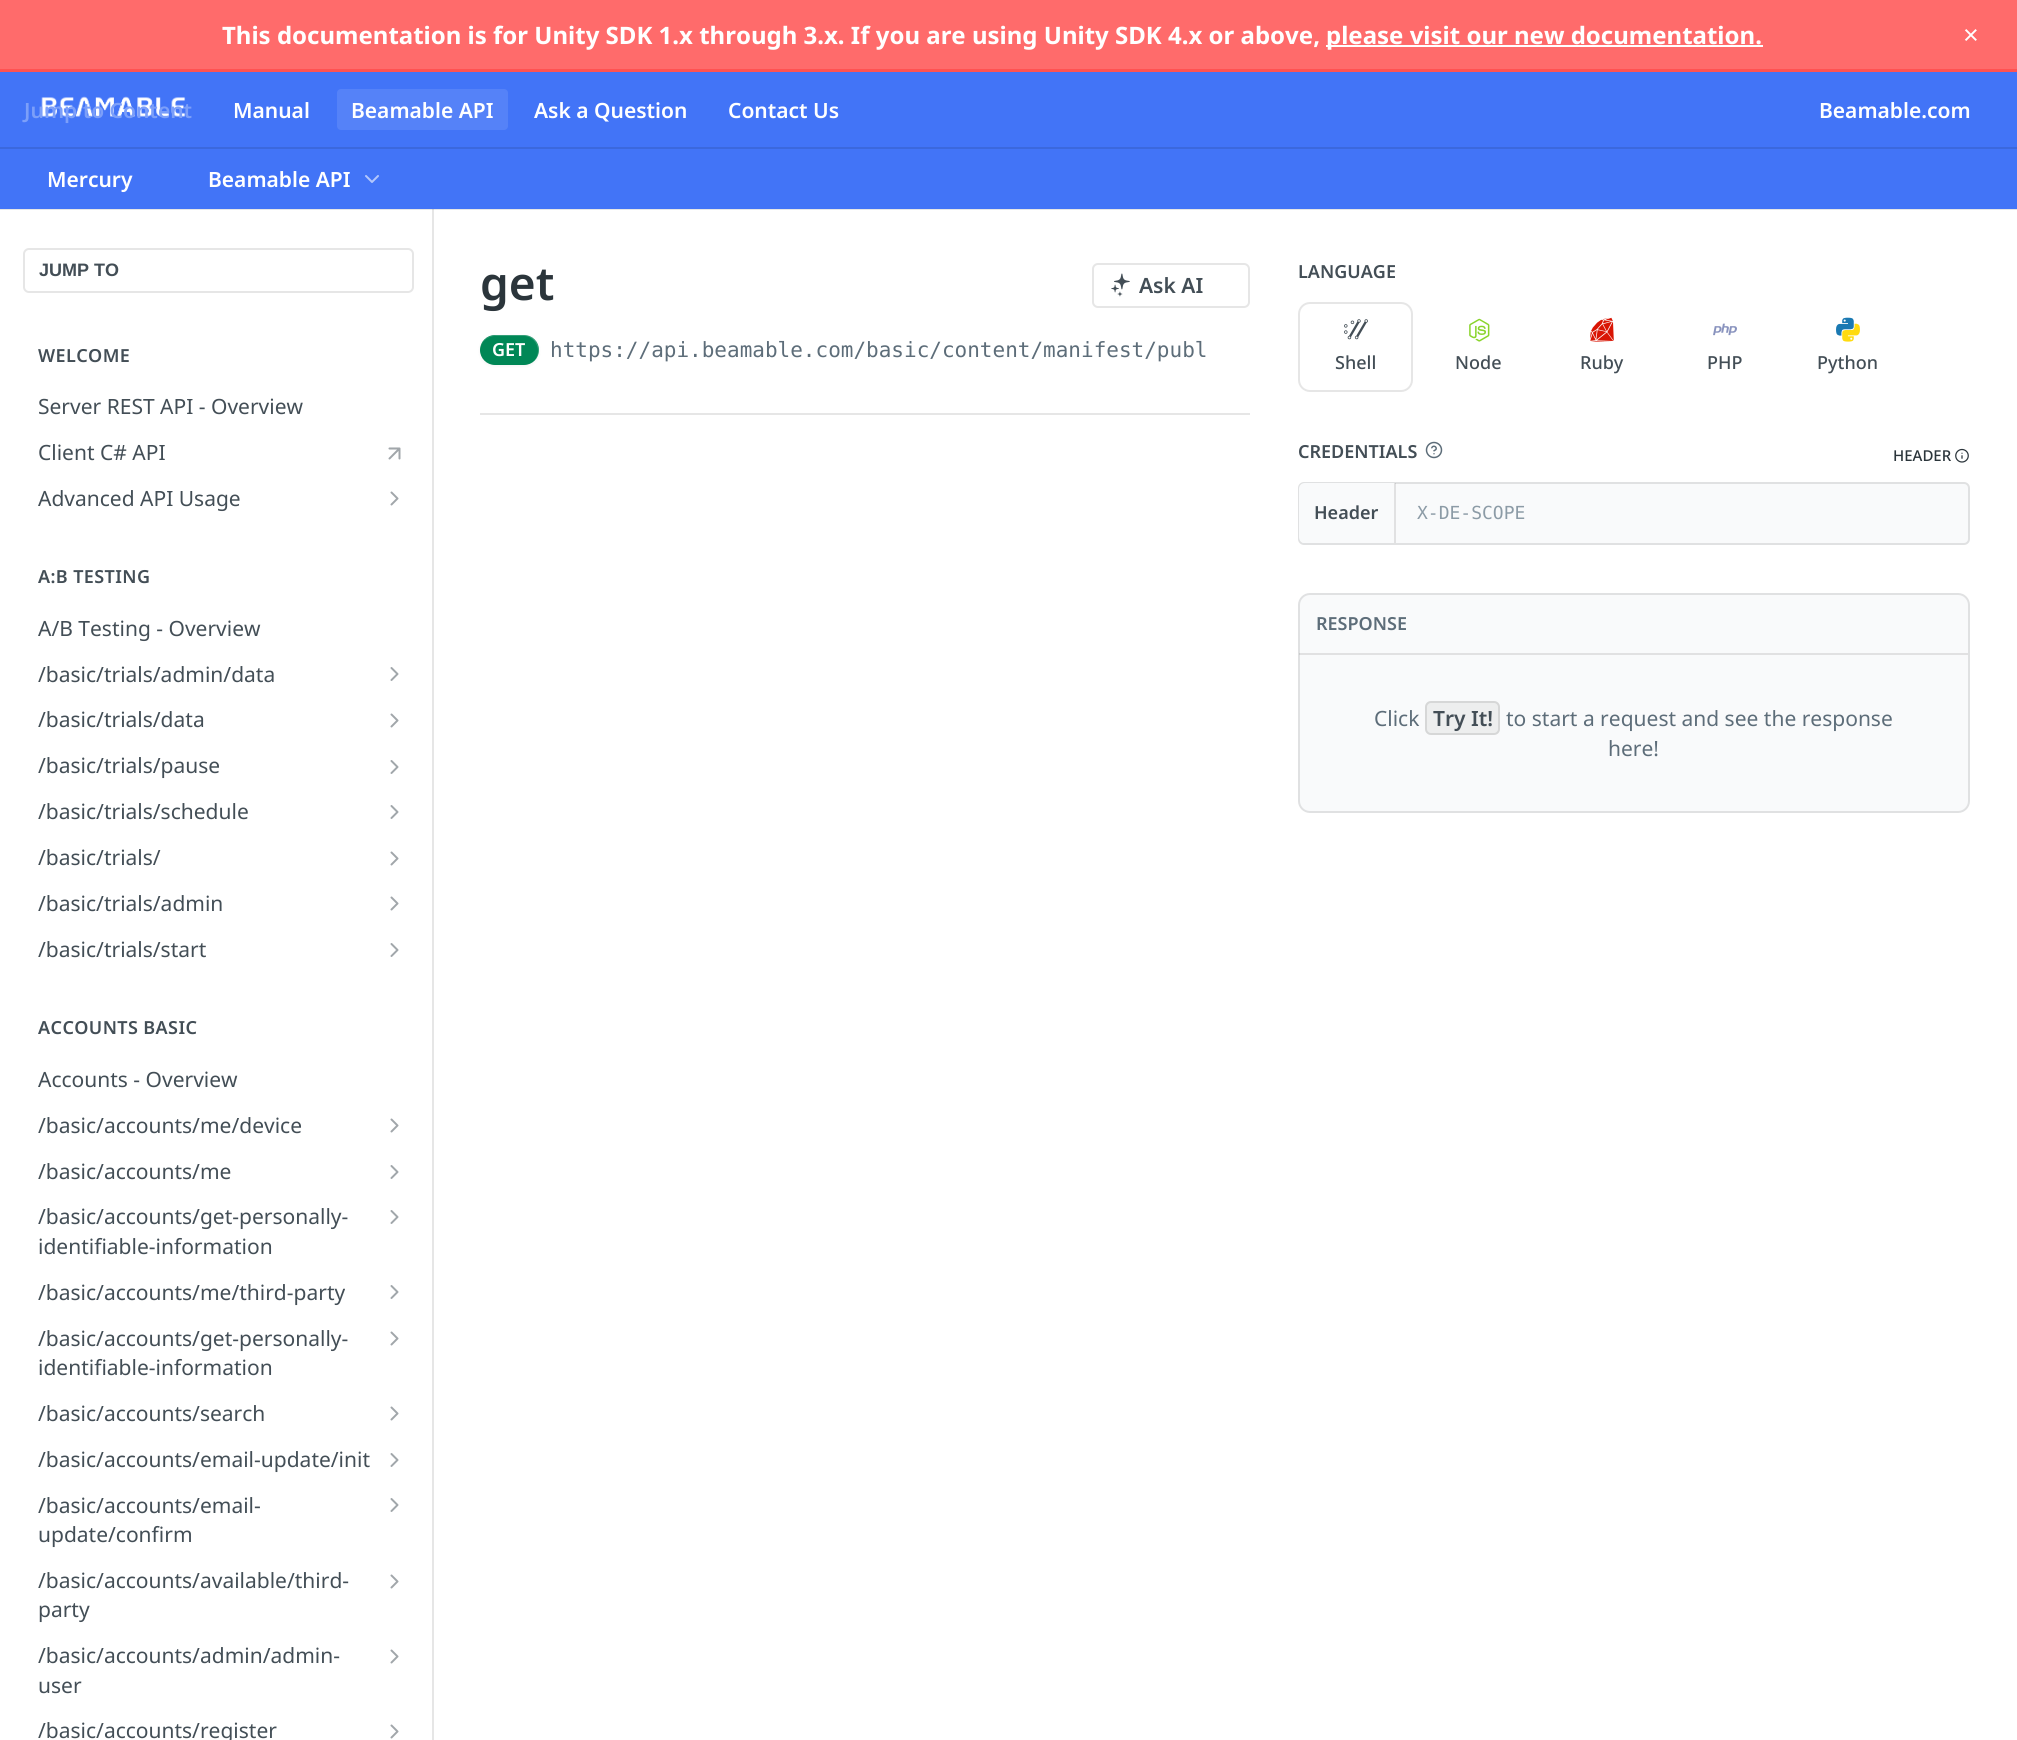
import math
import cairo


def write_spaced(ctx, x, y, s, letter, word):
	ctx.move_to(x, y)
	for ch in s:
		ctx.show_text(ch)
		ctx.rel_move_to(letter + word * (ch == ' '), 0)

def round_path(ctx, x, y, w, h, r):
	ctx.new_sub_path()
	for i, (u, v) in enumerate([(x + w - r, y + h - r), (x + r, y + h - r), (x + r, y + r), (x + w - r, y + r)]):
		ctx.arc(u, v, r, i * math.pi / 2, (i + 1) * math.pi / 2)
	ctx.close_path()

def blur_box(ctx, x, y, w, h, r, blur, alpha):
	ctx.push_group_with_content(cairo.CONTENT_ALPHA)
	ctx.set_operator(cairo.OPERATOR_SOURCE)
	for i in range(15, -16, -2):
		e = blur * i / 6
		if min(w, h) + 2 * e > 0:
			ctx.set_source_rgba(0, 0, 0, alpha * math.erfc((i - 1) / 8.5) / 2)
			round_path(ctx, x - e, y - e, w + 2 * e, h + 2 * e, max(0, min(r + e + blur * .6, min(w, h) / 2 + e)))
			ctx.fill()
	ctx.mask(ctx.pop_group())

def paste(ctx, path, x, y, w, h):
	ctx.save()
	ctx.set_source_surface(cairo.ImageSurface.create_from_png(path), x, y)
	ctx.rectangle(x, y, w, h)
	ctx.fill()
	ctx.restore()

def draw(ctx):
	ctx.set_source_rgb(1, 1, 1)
	ctx.paint()
	ctx.set_source_rgb(1, 0.42, 0.42)
	ctx.rectangle(0, 0, 2017, 69)
	ctx.fill()
	ctx.set_source_rgb(1, 0.322, 0.322)
	ctx.rectangle(0, 69, 2017, 3)
	ctx.fill()
	ctx.select_font_face('Noto Sans', cairo.FONT_SLANT_NORMAL, cairo.FONT_WEIGHT_BOLD)
	ctx.set_font_size(24)
	ctx.set_source_rgb(1, 1, 1)
	ctx.move_to(222, 44)
	ctx.show_text('This documentation is for Unity SDK 1.x through 3.x. If you are using Unity SDK 4.x or above,')
	ctx.rectangle(1326, 45, 437, 2)
	ctx.fill()
	ctx.move_to(1326, 44)
	ctx.show_text('please visit our new documentation.')
	ctx.select_font_face('Liberation Sans')
	ctx.set_font_size(27)
	ctx.move_to(1963, 44)
	ctx.show_text('×')
	ctx.set_source_rgb(0.902, 0.902, 0.902)
	ctx.new_path()
	ctx.move_to(2, 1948)
	ctx.line_to(2, 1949)
	ctx.line_to(434, 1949)
	ctx.line_to(434, 209)
	ctx.line_to(432, 209)
	ctx.line_to(432, 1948)
	ctx.close_path()
	ctx.fill()
	ctx.set_source_rgba(0, 0, 0, 0.1)
	ctx.new_path()
	ctx.move_to(0, 208)
	ctx.line_to(0, 210)
	ctx.line_to(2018, 210)
	ctx.line_to(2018, 74)
	ctx.line_to(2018, 208)
	ctx.close_path()
	ctx.fill()
	ctx.set_source_rgb(0.259, 0.455, 0.965)
	ctx.rectangle(0, 72, 2017, 137)
	ctx.fill()
	ctx.set_source_rgb(0.231, 0.408, 0.867)
	ctx.rectangle(0, 147, 2017, 2)
	ctx.fill()
	paste(ctx, 'media/1.png', 41, 96, 145, 21)
	ctx.select_font_face('Noto Sans SemiBold')
	ctx.set_font_size(21)
	ctx.set_source_rgb(0.486, 0.624, 0.976)
	ctx.move_to(24, 118)
	ctx.show_text('Jump to Content')
	ctx.set_source_rgb(1, 1, 1)
	ctx.move_to(233, 118)
	ctx.show_text('Manual')
	ctx.set_source_rgb(0.333, 0.51, 0.969)
	round_path(ctx, 336, 88, 173, 43, 5)
	ctx.fill_preserve()
	ctx.set_source_rgb(0.259, 0.455, 0.965)
	ctx.stroke()
	ctx.set_source_rgb(1, 1, 1)
	for x, y, s in [
		(351, 118, 'Beamable API'),
		(534, 118, 'Ask a Question'),
		(728, 118, 'Contact Us'),
		(1819, 118, 'Beamable.com'),
		(47, 187, 'Mercury'),
		(208, 187, 'Beamable API'),
	]:
		ctx.move_to(x, y)
		ctx.show_text(s)
	paste(ctx, 'media/2.png', 365, 175, 14, 8)
	round_path(ctx, 24, 249, 389, 43, 5)
	ctx.set_source_rgb(0.902, 0.902, 0.902)
	ctx.stroke()
	ctx.select_font_face('Liberation Sans', cairo.FONT_SLANT_NORMAL, cairo.FONT_WEIGHT_BOLD)
	ctx.set_font_size(18)
	ctx.set_source_rgb(0.263, 0.306, 0.337)
	ctx.move_to(39, 276)
	ctx.show_text('JUMP TO')
	ctx.select_font_face('Noto Sans SemiBold')
	write_spaced(ctx, 38, 362, 'WELCOME', 0.4, 0)
	ctx.select_font_face('Noto Sans')
	ctx.set_font_size(21)
	ctx.move_to(38, 414)
	ctx.show_text('Server REST API - Overview')
	ctx.move_to(38, 460)
	ctx.show_text('Client C# API')
	paste(ctx, 'media/3.png', 388, 447, 13, 13)
	ctx.move_to(38, 506)
	ctx.show_text('Advanced API Usage')
	paste(ctx, 'media/4.png', 390, 491, 9, 15)
	ctx.select_font_face('Noto Sans SemiBold')
	ctx.set_font_size(18)
	write_spaced(ctx, 38, 583, 'A:B TESTING', 0.4, 0)
	ctx.select_font_face('Noto Sans')
	ctx.set_font_size(21)
	ctx.move_to(38, 636)
	ctx.show_text('A/B Testing - Overview')
	ctx.move_to(38, 682)
	ctx.show_text('/basic/trials/admin/data')
	paste(ctx, 'media/5.png', 390, 667, 9, 14)
	ctx.move_to(38, 727)
	ctx.show_text('/basic/trials/data')
	paste(ctx, 'media/4.png', 390, 713, 9, 15)
	ctx.move_to(38, 773)
	ctx.show_text('/basic/trials/pause')
	paste(ctx, 'media/5.png', 390, 760, 9, 14)
	ctx.move_to(38, 819)
	ctx.show_text('/basic/trials/schedule')
	paste(ctx, 'media/5.png', 390, 805, 9, 14)
	ctx.move_to(38, 865)
	ctx.show_text('/basic/trials/')
	paste(ctx, 'media/4.png', 390, 851, 9, 15)
	ctx.move_to(38, 911)
	ctx.show_text('/basic/trials/admin')
	paste(ctx, 'media/4.png', 390, 896, 9, 15)
	ctx.move_to(38, 957)
	ctx.show_text('/basic/trials/start')
	paste(ctx, 'media/5.png', 390, 943, 9, 14)
	ctx.select_font_face('Noto Sans SemiBold')
	ctx.set_font_size(18)
	write_spaced(ctx, 38, 1034, 'ACCOUNTS BASIC', 0.4, 0)
	ctx.select_font_face('Noto Sans')
	ctx.set_font_size(21)
	ctx.move_to(38, 1087)
	ctx.show_text('Accounts - Overview')
	ctx.move_to(38, 1133)
	ctx.show_text('/basic/accounts/me/device')
	paste(ctx, 'media/4.png', 390, 1118, 9, 15)
	ctx.move_to(38, 1179)
	ctx.show_text('/basic/accounts/me')
	paste(ctx, 'media/5.png', 390, 1165, 9, 14)
	ctx.move_to(38, 1224)
	ctx.show_text('/basic/accounts/get-personally-')
	ctx.move_to(38, 1254)
	ctx.show_text('identifiable-information')
	paste(ctx, 'media/5.png', 390, 1210, 9, 14)
	ctx.move_to(38, 1300)
	ctx.show_text('/basic/accounts/me/third-party')
	paste(ctx, 'media/5.png', 390, 1285, 9, 14)
	ctx.move_to(38, 1346)
	ctx.show_text('/basic/accounts/get-personally-')
	ctx.move_to(38, 1375)
	ctx.show_text('identifiable-information')
	paste(ctx, 'media/4.png', 390, 1331, 9, 15)
	ctx.move_to(38, 1421)
	ctx.show_text('/basic/accounts/search')
	paste(ctx, 'media/4.png', 390, 1406, 9, 15)
	ctx.move_to(38, 1467)
	ctx.show_text('/basic/accounts/email-update/init')
	paste(ctx, 'media/5.png', 390, 1453, 9, 14)
	ctx.move_to(38, 1513)
	ctx.show_text('/basic/accounts/email-')
	ctx.move_to(38, 1542)
	ctx.show_text('update/confirm')
	paste(ctx, 'media/5.png', 390, 1498, 9, 14)
	ctx.move_to(38, 1588)
	ctx.show_text('/basic/accounts/available/third-')
	ctx.move_to(38, 1617)
	ctx.show_text('party')
	paste(ctx, 'media/4.png', 390, 1574, 9, 15)
	ctx.move_to(38, 1663)
	ctx.show_text('/basic/accounts/admin/admin-')
	ctx.move_to(38, 1693)
	ctx.show_text('user')
	paste(ctx, 'media/4.png', 390, 1649, 9, 15)
	ctx.move_to(38, 1738)
	ctx.show_text('/basic/accounts/register')
	paste(ctx, 'media/4.png', 390, 1724, 9, 15)
	ctx.set_source_rgb(0.902, 0.902, 0.902)
	ctx.rectangle(480, 413, 770, 2)
	ctx.fill()
	ctx.select_font_face('Noto Sans SemiBold')
	ctx.set_font_size(46)
	ctx.set_source_rgb(0.169, 0.208, 0.231)
	ctx.move_to(480, 300)
	ctx.show_text('get')
	round_path(ctx, 1093, 264, 156, 43, 5)
	ctx.set_source_rgb(0.902, 0.902, 0.902)
	ctx.stroke()
	paste(ctx, 'media/6.png', 1111, 273, 19, 24)
	ctx.set_font_size(21)
	ctx.set_source_rgb(0.263, 0.306, 0.337)
	ctx.move_to(1139, 293)
	ctx.show_text('Ask AI')
	ctx.set_source_rgb(0, 0, 0)
	blur_box(ctx, 480, 336, 59, 30, 15, 1.5, 0.05)
	ctx.set_source_rgb(0, 0.529, 0.337)
	round_path(ctx, 480, 335, 59, 30, 15)
	ctx.fill()
	ctx.set_source_rgba(1, 1, 1, 0.2)
	ctx.new_path()
	ctx.move_to(495, 336)
	ctx.line_to(524, 336)
	ctx.curve_to(532, 336, 538, 343, 538, 351)
	ctx.curve_to(538, 354, 537, 357, 535, 360)
	ctx.curve_to(543, 352, 538, 338, 527, 335)
	ctx.line_to(510, 335)
	ctx.curve_to(500, 335, 489, 333, 483, 342)
	ctx.curve_to(481, 344, 480, 347, 480, 351)
	ctx.curve_to(480, 343, 487, 336, 495, 336)
	ctx.close_path()
	ctx.fill()
	ctx.set_font_size(18)
	ctx.set_source_rgb(1, 1, 1)
	ctx.move_to(492, 356)
	ctx.show_text('GET')
	ctx.select_font_face('DejaVu Sans Mono')
	ctx.set_font_size(21)
	ctx.set_source_rgb(0.365, 0.427, 0.475)
	ctx.move_to(550, 357)
	ctx.show_text('https://api.beamable.com/basic/content/manifest/publ')
	ctx.select_font_face('Noto Sans SemiBold')
	ctx.set_font_size(18)
	ctx.set_source_rgb(0.263, 0.306, 0.337)
	ctx.move_to(1298, 278)
	ctx.show_text('LANGUAGE')
	round_path(ctx, 1299, 303, 113, 88, 11)
	ctx.set_source_rgb(0.902, 0.902, 0.902)
	ctx.stroke()
	paste(ctx, 'media/7.png', 1344, 319, 24, 21)
	ctx.select_font_face('Noto Sans Medium')
	ctx.set_source_rgb(0.263, 0.306, 0.337)
	ctx.move_to(1335, 369)
	ctx.show_text('Shell')
	paste(ctx, 'media/8.png', 1469, 318, 21, 24)
	ctx.move_to(1455, 369)
	ctx.show_text('Node')
	paste(ctx, 'media/9.png', 1590, 317, 24, 25)
	ctx.move_to(1580, 369)
	ctx.show_text('Ruby')
	paste(ctx, 'media/10.png', 1713, 323, 24, 13)
	ctx.move_to(1707, 369)
	ctx.show_text('PHP')
	paste(ctx, 'media/11.png', 1836, 317, 18, 19)
	paste(ctx, 'media/12.png', 1842, 323, 18, 19)
	ctx.move_to(1817, 369)
	ctx.show_text('Python')
	ctx.select_font_face('Noto Sans SemiBold')
	ctx.move_to(1298, 458)
	ctx.show_text('CREDENTIALS')
	paste(ctx, 'media/13.png', 1425, 441, 18, 18)
	ctx.select_font_face('Noto Sans Medium')
	ctx.set_font_size(15)
	ctx.set_source_rgb(0.169, 0.208, 0.231)
	ctx.move_to(1893, 461)
	ctx.show_text('HEADER')
	paste(ctx, 'media/14.png', 1955, 448, 14, 15)
	ctx.set_source_rgb(0.976, 0.98, 0.984)
	round_path(ctx, 1299, 483, 670, 61, 5)
	ctx.fill_preserve()
	ctx.set_source_rgb(0.878, 0.882, 0.886)
	ctx.stroke()
	ctx.set_source_rgb(0.976, 0.98, 0.984)
	ctx.new_path()
	ctx.move_to(1305, 483)
	ctx.line_to(1395, 483)
	ctx.line_to(1395, 543)
	ctx.line_to(1305, 543)
	ctx.curve_to(1301.5, 543, 1299, 540.5, 1299, 537)
	ctx.line_to(1299, 489)
	ctx.curve_to(1299, 485.5, 1301.5, 483, 1305, 483)
	ctx.close_path()
	ctx.fill()
	ctx.set_source_rgba(0, 0, 0, 0.1)
	ctx.rectangle(1394, 483, 2, 60)
	ctx.fill()
	ctx.select_font_face('Noto Sans SemiBold')
	ctx.set_font_size(18)
	ctx.set_source_rgb(0.263, 0.306, 0.337)
	ctx.move_to(1314, 519)
	ctx.show_text('Header')
	ctx.select_font_face('DejaVu Sans Mono')
	ctx.set_source_rgb(0.549, 0.608, 0.651)
	ctx.move_to(1417, 519)
	ctx.show_text('X-DE-SCOPE')
	ctx.set_source_rgb(0.976, 0.98, 0.984)
	round_path(ctx, 1299, 594, 670, 218, 11)
	ctx.fill_preserve()
	ctx.set_source_rgb(0.878, 0.882, 0.886)
	ctx.stroke()
	ctx.set_source_rgba(0, 0, 0, 0.1)
	ctx.rectangle(1299, 653, 669, 2)
	ctx.fill()
	ctx.set_source_rgba(1, 1, 1, 0.05)
	ctx.rectangle(1299, 654, 1, 1)
	ctx.fill()
	ctx.select_font_face('Noto Sans SemiBold')
	ctx.set_source_rgb(0.365, 0.427, 0.475)
	ctx.move_to(1316, 630)
	ctx.show_text('RESPONSE')
	ctx.select_font_face('Noto Sans')
	ctx.set_font_size(21)
	ctx.move_to(1374, 726)
	ctx.show_text('Click')
	ctx.set_source_rgb(0.929, 0.933, 0.933)
	round_path(ctx, 1425, 701, 75, 34, 6)
	ctx.fill()
	round_path(ctx, 1426, 702, 73, 32, 5)
	ctx.set_source_rgba(0, 0, 0, 0.1)
	ctx.stroke()
	ctx.select_font_face('Noto Sans SemiBold')
	ctx.set_source_rgb(0.263, 0.306, 0.337)
	ctx.move_to(1433, 726)
	ctx.show_text('Try It!')
	ctx.select_font_face('Noto Sans')
	ctx.set_source_rgb(0.365, 0.427, 0.475)
	ctx.move_to(1506, 726)
	ctx.show_text('to start a request and see the response')
	ctx.move_to(1608, 756)
	ctx.show_text('here!')


surface = cairo.ImageSurface(cairo.FORMAT_RGB24, 2017, 1740)
ctx = cairo.Context(surface)
options = cairo.FontOptions()
options.set_hint_metrics(cairo.HINT_METRICS_OFF)
options.set_hint_style(cairo.HINT_STYLE_NONE)
ctx.set_font_options(options)
ctx.set_miter_limit(4)
draw(ctx)
surface.write_to_png('image.png')
